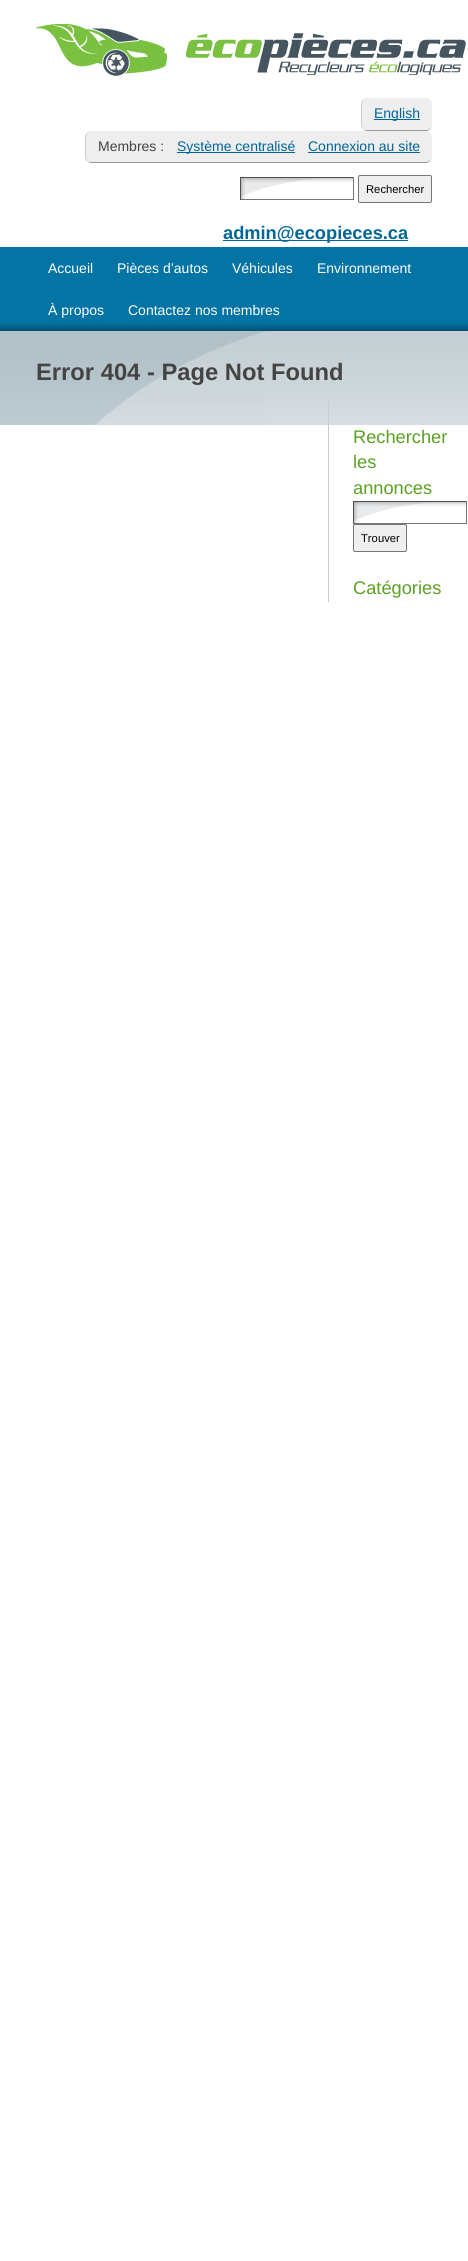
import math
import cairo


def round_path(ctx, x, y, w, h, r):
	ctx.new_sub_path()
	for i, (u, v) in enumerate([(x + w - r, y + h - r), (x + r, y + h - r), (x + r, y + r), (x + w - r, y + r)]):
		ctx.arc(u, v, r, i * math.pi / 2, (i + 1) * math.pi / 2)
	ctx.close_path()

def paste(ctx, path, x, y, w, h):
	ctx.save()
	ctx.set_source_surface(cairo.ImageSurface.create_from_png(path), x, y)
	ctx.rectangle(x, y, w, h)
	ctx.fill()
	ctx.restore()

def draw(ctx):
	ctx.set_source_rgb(1, 1, 1)
	ctx.paint()
	paste(ctx, 'media/1.png', 36, 24, 430, 52)
	ctx.set_source_rgb(0.933, 0.933, 0.933)
	round_path(ctx, 361, 98, 71, 33, 6)
	ctx.fill()
	ctx.set_source_rgb(0.6, 0.6, 0.6)
	ctx.new_path()
	ctx.move_to(426, 131)
	ctx.curve_to(429, 131, 432, 128, 432, 125)
	ctx.curve_to(432, 128, 429, 130, 426, 130)
	ctx.line_to(367, 130)
	ctx.curve_to(366, 130, 364, 130, 363, 129)
	ctx.curve_to(364, 130, 366, 131, 367, 131)
	ctx.close_path()
	ctx.fill()
	ctx.set_source_rgb(0.8, 0.8, 0.8)
	ctx.new_path()
	ctx.move_to(361, 104)
	ctx.line_to(361, 125)
	ctx.curve_to(361, 126.5, 362, 128, 363, 129)
	ctx.line_to(363.5, 128.5)
	ctx.curve_to(362.5, 128, 362, 126.5, 362, 125)
	ctx.line_to(362, 104)
	ctx.curve_to(362, 101, 364, 98, 367, 98)
	ctx.curve_to(364, 98, 361, 101, 361, 104)
	ctx.close_path()
	ctx.fill()
	ctx.set_source_rgb(0, 0.4, 0.6)
	ctx.rectangle(374, 119, 46, 1)
	ctx.fill()
	ctx.select_font_face('Liberation Sans')
	ctx.set_font_size(14)
	ctx.move_to(374, 118)
	ctx.show_text('English')
	ctx.set_source_rgb(0.933, 0.933, 0.933)
	round_path(ctx, 85, 131, 347, 32, 6)
	ctx.fill()
	ctx.set_source_rgb(0.6, 0.6, 0.6)
	ctx.new_path()
	ctx.move_to(426, 163)
	ctx.curve_to(429, 163, 432, 160, 432, 157)
	ctx.curve_to(432, 160, 429, 162, 426, 162)
	ctx.line_to(91, 162)
	ctx.curve_to(90, 162, 88, 162, 87, 161)
	ctx.curve_to(88, 162, 90, 163, 91, 163)
	ctx.close_path()
	ctx.fill()
	ctx.set_source_rgb(0.8, 0.8, 0.8)
	ctx.new_path()
	ctx.move_to(85, 137)
	ctx.line_to(85, 157)
	ctx.curve_to(85, 158.5, 86, 160, 87, 161)
	ctx.line_to(87.5, 160.5)
	ctx.curve_to(86.5, 160, 86, 158.5, 86, 157)
	ctx.line_to(86, 137)
	ctx.curve_to(86, 134, 88, 131, 91, 131)
	ctx.curve_to(88, 131, 85, 134, 85, 137)
	ctx.close_path()
	ctx.fill()
	ctx.set_source_rgb(0.267, 0.267, 0.267)
	ctx.move_to(98, 151)
	ctx.show_text('Membres :')
	ctx.set_source_rgb(0, 0.4, 0.6)
	ctx.rectangle(177, 152, 118, 1)
	ctx.fill()
	ctx.move_to(177, 151)
	ctx.show_text('Système centralisé')
	ctx.move_to(308, 151)
	ctx.show_text('Connexion au site')
	ctx.rectangle(308, 152, 112, 1)
	ctx.fill()
	paste(ctx, 'media/2.png', 241, 178, 112, 21)
	ctx.set_source_rgb(0.31, 0.31, 0.31)
	ctx.rectangle(240, 177, 114, 1)
	ctx.fill()
	ctx.set_source_rgb(0.463, 0.463, 0.463)
	ctx.rectangle(353, 177, 1, 23)
	ctx.rectangle(240, 199, 114, 1)
	ctx.fill()
	ctx.set_source_rgb(0.31, 0.31, 0.31)
	ctx.rectangle(240, 177, 1, 23)
	ctx.fill()
	ctx.set_source_rgb(0.937, 0.937, 0.937)
	round_path(ctx, 358.5, 175.5, 73, 27, 1.5)
	ctx.fill_preserve()
	ctx.set_source_rgb(0.463, 0.463, 0.463)
	ctx.set_line_width(1)
	ctx.stroke()
	ctx.set_font_size(11.25)
	ctx.set_source_rgb(0, 0, 0)
	ctx.move_to(366, 193)
	ctx.show_text('Rechercher')
	ctx.set_source_rgb(0, 0.4, 0.6)
	ctx.rectangle(223, 240, 185, 1)
	ctx.fill()
	ctx.select_font_face('Liberation Sans', cairo.FONT_SLANT_NORMAL, cairo.FONT_WEIGHT_BOLD)
	ctx.set_font_size(18.25)
	ctx.move_to(223, 239)
	ctx.show_text('admin@ecopieces.ca')
	ctx.set_source_rgb(0.012, 0.455, 0.643)
	ctx.rectangle(0, 247, 468, 76)
	ctx.fill()
	paste(ctx, 'media/3.png', 0, 323, 468, 8)
	ctx.select_font_face('Liberation Sans')
	ctx.set_font_size(14)
	ctx.set_source_rgb(1, 1, 1)
	for x, y, s in [
		(48, 273, 'Accueil'),
		(117, 273, 'Pièces d’autos'),
		(232, 273, 'Véhicules'),
		(317, 273, 'Environnement'),
		(48, 315, 'À propos'),
		(128, 315, 'Contactez nos membres'),
	]:
		ctx.move_to(x, y)
		ctx.show_text(s)
	paste(ctx, 'media/4.png', 266, 331, 202, 94)
	paste(ctx, 'media/5.png', 0, 331, 266, 94)
	ctx.select_font_face('Liberation Sans', cairo.FONT_SLANT_NORMAL, cairo.FONT_WEIGHT_BOLD)
	ctx.set_font_size(23.75)
	ctx.set_source_rgb(0.267, 0.267, 0.267)
	ctx.move_to(36, 380)
	ctx.show_text('Error 404 - Page Not Found')
	ctx.set_source_rgb(0.8, 0.8, 0.8)
	ctx.rectangle(328, 401, 1, 201)
	ctx.fill()
	ctx.select_font_face('Liberation Sans')
	ctx.set_font_size(18.25)
	ctx.set_source_rgb(0.353, 0.631, 0.133)
	for x, y, s in [
		(353, 443, 'Rechercher'),
		(353, 468, 'les'),
		(353, 494, 'annonces'),
	]:
		ctx.move_to(x, y)
		ctx.show_text(s)
	paste(ctx, 'media/2.png', 354, 502, 112, 21)
	ctx.set_source_rgb(0.31, 0.31, 0.31)
	ctx.rectangle(353, 501, 114, 1)
	ctx.fill()
	ctx.set_source_rgb(0.463, 0.463, 0.463)
	ctx.rectangle(466, 501, 1, 23)
	ctx.rectangle(353, 523, 114, 1)
	ctx.fill()
	ctx.set_source_rgb(0.31, 0.31, 0.31)
	ctx.rectangle(353, 501, 1, 23)
	ctx.fill()
	ctx.set_source_rgb(0.937, 0.937, 0.937)
	round_path(ctx, 353.5, 524.5, 53, 27, 1.5)
	ctx.fill_preserve()
	ctx.set_source_rgb(0.463, 0.463, 0.463)
	ctx.stroke()
	ctx.set_font_size(11.25)
	ctx.set_source_rgb(0, 0, 0)
	ctx.move_to(361, 542)
	ctx.show_text('Trouver')
	ctx.set_font_size(18.25)
	ctx.set_source_rgb(0.353, 0.631, 0.133)
	ctx.move_to(353, 594)
	ctx.show_text('Catégories')


surface = cairo.ImageSurface(cairo.FORMAT_RGB24, 468, 2261)
ctx = cairo.Context(surface)
options = cairo.FontOptions()
options.set_hint_metrics(cairo.HINT_METRICS_OFF)
options.set_hint_style(cairo.HINT_STYLE_NONE)
ctx.set_font_options(options)
ctx.set_miter_limit(4)
draw(ctx)
surface.write_to_png('image.png')
